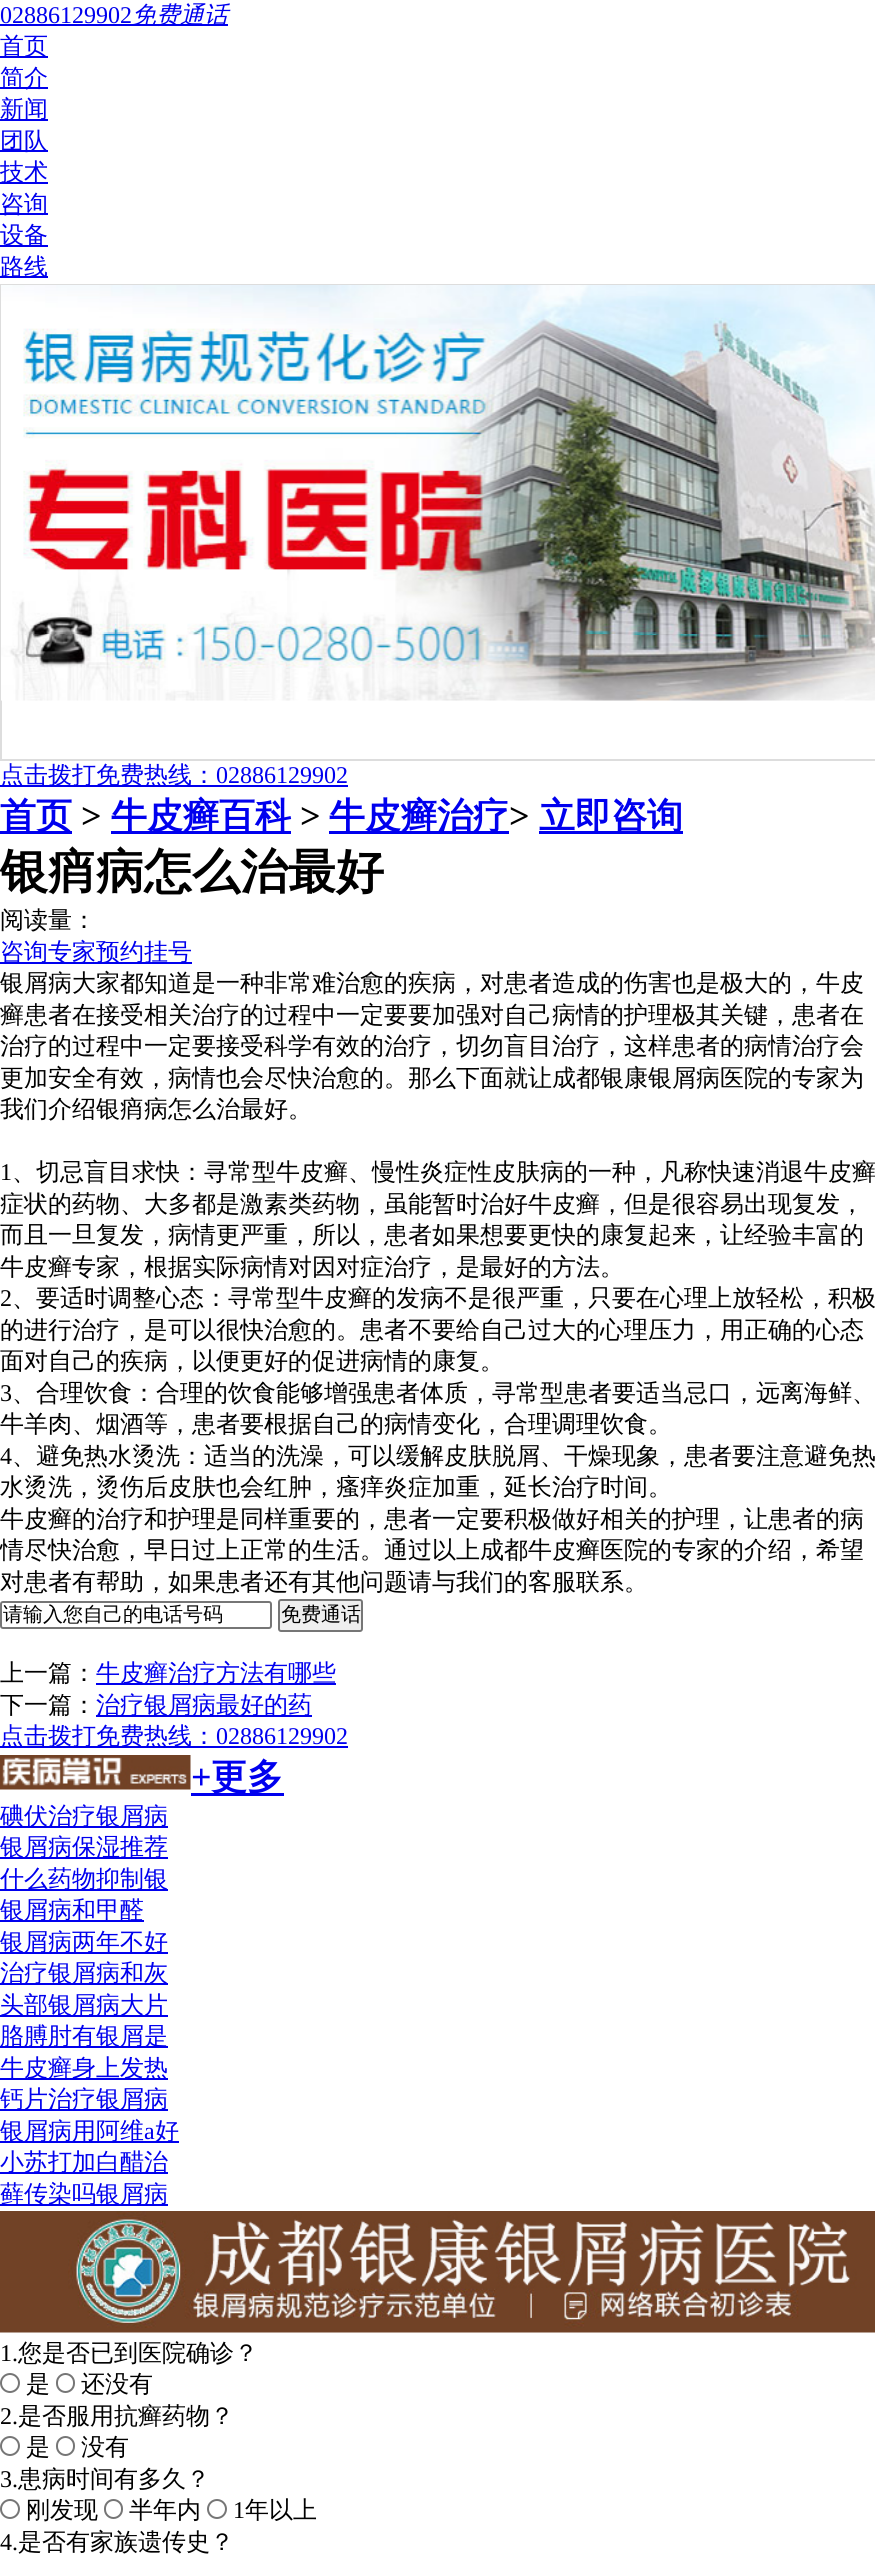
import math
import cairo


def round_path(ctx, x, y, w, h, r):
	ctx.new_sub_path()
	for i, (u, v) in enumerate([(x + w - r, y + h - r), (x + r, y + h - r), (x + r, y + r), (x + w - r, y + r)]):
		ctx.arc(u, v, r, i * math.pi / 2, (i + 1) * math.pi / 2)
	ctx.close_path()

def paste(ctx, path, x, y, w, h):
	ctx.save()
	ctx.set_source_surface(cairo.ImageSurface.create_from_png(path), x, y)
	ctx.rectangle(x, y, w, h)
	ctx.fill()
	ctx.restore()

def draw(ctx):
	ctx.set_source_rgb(1, 1, 1)
	ctx.paint()
	ctx.select_font_face('Liberation Serif')
	ctx.set_font_size(24)
	ctx.set_source_rgb(0, 0, 0.933)
	ctx.move_to(0, 23)
	ctx.show_text('02886129902')
	ctx.rectangle(0, 24, 228, 2)
	ctx.fill()
	ctx.select_font_face('WenQuanYi Zen Hei Medium', cairo.FONT_SLANT_ITALIC)
	ctx.move_to(132, 23)
	ctx.show_text('免费通话')
	ctx.rectangle(0, 56, 48, 2)
	ctx.fill()
	ctx.select_font_face('WenQuanYi Zen Hei Medium')
	ctx.move_to(0, 54)
	ctx.show_text('首页')
	ctx.rectangle(0, 87, 48, 2)
	ctx.fill()
	ctx.move_to(0, 86)
	ctx.show_text('简介')
	ctx.rectangle(0, 119, 48, 2)
	ctx.fill()
	ctx.move_to(0, 117)
	ctx.show_text('新闻')
	ctx.rectangle(0, 150, 48, 2)
	ctx.fill()
	ctx.move_to(0, 149)
	ctx.show_text('团队')
	ctx.rectangle(0, 182, 48, 2)
	ctx.fill()
	ctx.move_to(0, 180)
	ctx.show_text('技术')
	ctx.rectangle(0, 213, 48, 2)
	ctx.fill()
	ctx.move_to(0, 212)
	ctx.show_text('咨询')
	ctx.rectangle(0, 245, 48, 2)
	ctx.fill()
	ctx.move_to(0, 243)
	ctx.show_text('设备')
	ctx.rectangle(0, 276, 48, 2)
	ctx.fill()
	ctx.move_to(0, 275)
	ctx.show_text('路线')
	ctx.rectangle(1, 285, 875, 475)
	ctx.set_source_rgb(0.867, 0.867, 0.867)
	ctx.stroke()
	paste(ctx, 'media/1.png', 1, 285, 874, 416)
	ctx.set_source_rgb(0, 0, 0.933)
	ctx.rectangle(0, 785, 348, 2)
	ctx.fill()
	ctx.move_to(0, 783)
	ctx.show_text('点击拨打免费热线：')
	ctx.select_font_face('Liberation Serif')
	ctx.move_to(216, 783)
	ctx.show_text('02886129902')
	ctx.rectangle(0, 831, 72, 3)
	ctx.fill()
	ctx.select_font_face('WenQuanYi Zen Hei', cairo.FONT_SLANT_NORMAL, cairo.FONT_WEIGHT_BOLD)
	ctx.set_font_size(36)
	ctx.move_to(0, 828)
	ctx.show_text('首页')
	ctx.select_font_face('Liberation Serif', cairo.FONT_SLANT_NORMAL, cairo.FONT_WEIGHT_BOLD)
	ctx.set_source_rgb(0, 0, 0)
	ctx.move_to(81, 828)
	ctx.show_text('>')
	ctx.set_source_rgb(0, 0, 0.933)
	ctx.rectangle(111, 831, 180, 3)
	ctx.fill()
	ctx.select_font_face('WenQuanYi Zen Hei', cairo.FONT_SLANT_NORMAL, cairo.FONT_WEIGHT_BOLD)
	ctx.move_to(111, 828)
	ctx.show_text('牛皮癣百科')
	ctx.select_font_face('Liberation Serif', cairo.FONT_SLANT_NORMAL, cairo.FONT_WEIGHT_BOLD)
	ctx.set_source_rgb(0, 0, 0)
	ctx.move_to(300, 828)
	ctx.show_text('>')
	ctx.set_source_rgb(0, 0, 0.933)
	ctx.rectangle(329, 831, 180, 3)
	ctx.fill()
	ctx.select_font_face('WenQuanYi Zen Hei', cairo.FONT_SLANT_NORMAL, cairo.FONT_WEIGHT_BOLD)
	ctx.move_to(329, 828)
	ctx.show_text('牛皮癣治疗')
	ctx.select_font_face('Liberation Serif', cairo.FONT_SLANT_NORMAL, cairo.FONT_WEIGHT_BOLD)
	ctx.set_source_rgb(0, 0, 0)
	ctx.move_to(509, 828)
	ctx.show_text('>')
	ctx.set_source_rgb(0, 0, 0.933)
	ctx.rectangle(539, 831, 144, 3)
	ctx.fill()
	ctx.select_font_face('WenQuanYi Zen Hei', cairo.FONT_SLANT_NORMAL, cairo.FONT_WEIGHT_BOLD)
	ctx.move_to(539, 828)
	ctx.show_text('立即咨询')
	ctx.set_font_size(48)
	ctx.set_source_rgb(0, 0, 0)
	ctx.move_to(0, 888)
	ctx.show_text('银痟病怎么治最好')
	ctx.select_font_face('WenQuanYi Zen Hei Medium')
	ctx.set_font_size(24)
	ctx.move_to(0, 928)
	ctx.show_text('阅读量：')
	ctx.set_source_rgb(0, 0, 0.933)
	ctx.rectangle(0, 962, 192, 2)
	ctx.fill()
	ctx.move_to(0, 960)
	ctx.show_text('咨询专家预约挂号')
	ctx.set_source_rgb(0, 0, 0)
	for x, y, s in [
		(0, 991, '银屑病大家都知道是一种非常难治愈的疾病，对患者造成的伤害也是极大的，牛皮'),
		(0, 1023, '癣患者在接受相关治疗的过程中一定要要加强对自己病情的护理极其关键，患者在'),
		(0, 1054, '治疗的过程中一定要接受科学有效的治疗，切勿盲目治疗，这样患者的病情治疗会'),
		(0, 1086, '更加安全有效，病情也会尽快治愈的。那么下面就让成都银康银屑病医院的专家为'),
		(0, 1117, '我们介绍银痟病怎么治最好。'),
	]:
		ctx.move_to(x, y)
		ctx.show_text(s)
	ctx.select_font_face('Liberation Serif')
	ctx.move_to(0, 1180)
	ctx.show_text('1')
	ctx.select_font_face('WenQuanYi Zen Hei Medium')
	for x, y, s in [
		(12, 1180, '、切忌盲目求快：寻常型牛皮癣、慢性炎症性皮肤病的一种，凡称快速消退牛皮癣'),
		(0, 1212, '症状的药物、大多都是激素类药物，虽能暂时治好牛皮癣，但是很容易出现复发，'),
		(0, 1243, '而且一旦复发，病情更严重，所以，患者如果想要更快的康复起来，让经验丰富的'),
		(0, 1275, '牛皮癣专家，根据实际病情对因对症治疗，是最好的方法。'),
	]:
		ctx.move_to(x, y)
		ctx.show_text(s)
	ctx.select_font_face('Liberation Serif')
	ctx.move_to(0, 1306)
	ctx.show_text('2')
	ctx.select_font_face('WenQuanYi Zen Hei Medium')
	for x, y, s in [
		(12, 1306, '、要适时调整心态：寻常型牛皮癣的发病不是很严重，只要在心理上放轻松，积极'),
		(0, 1338, '的进行治疗，是可以很快治愈的。患者不要给自己过大的心理压力，用正确的心态'),
		(0, 1369, '面对自己的疾病，以便更好的促进病情的康复。'),
	]:
		ctx.move_to(x, y)
		ctx.show_text(s)
	ctx.select_font_face('Liberation Serif')
	ctx.move_to(0, 1401)
	ctx.show_text('3')
	ctx.select_font_face('WenQuanYi Zen Hei Medium')
	ctx.move_to(12, 1401)
	ctx.show_text('、合理饮食：合理的饮食能够增强患者体质，寻常型患者要适当忌口，远离海鲜、')
	ctx.move_to(0, 1432)
	ctx.show_text('牛羊肉、烟酒等，患者要根据自己的病情变化，合理调理饮食。')
	ctx.select_font_face('Liberation Serif')
	ctx.move_to(0, 1464)
	ctx.show_text('4')
	ctx.select_font_face('WenQuanYi Zen Hei Medium')
	for x, y, s in [
		(12, 1464, '、避免热水烫洗：适当的洗澡，可以缓解皮肤脱屑、干燥现象，患者要注意避免热'),
		(0, 1495, '水烫洗，烫伤后皮肤也会红肿，瘙痒炎症加重，延长治疗时间。'),
		(0, 1527, '牛皮癣的治疗和护理是同样重要的，患者一定要积极做好相关的护理，让患者的病'),
		(0, 1558, '情尽快治愈，早日过上正常的生活。通过以上成都牛皮癣医院的专家的介绍，希望'),
		(0, 1590, '对患者有帮助，如果患者还有其他问题请与我们的客服联系。'),
	]:
		ctx.move_to(x, y)
		ctx.show_text(s)
	round_path(ctx, 1, 1602, 270, 26, 2)
	ctx.set_source_rgb(0.463, 0.463, 0.463)
	ctx.stroke()
	ctx.set_font_size(20)
	ctx.set_source_rgb(0, 0, 0)
	ctx.move_to(3, 1621)
	ctx.show_text('请输入您自己的电话号码')
	ctx.set_source_rgb(0.937, 0.937, 0.937)
	round_path(ctx, 279, 1600, 83, 31, 2)
	ctx.fill_preserve()
	ctx.set_source_rgb(0.463, 0.463, 0.463)
	ctx.stroke()
	ctx.set_source_rgb(0, 0, 0)
	ctx.move_to(281, 1621)
	ctx.show_text('免费通话')
	ctx.set_font_size(24)
	ctx.move_to(0, 1681)
	ctx.show_text('上一篇：')
	ctx.set_source_rgb(0, 0, 0.933)
	ctx.rectangle(96, 1683, 240, 2)
	ctx.fill()
	ctx.move_to(96, 1681)
	ctx.show_text('牛皮癣治疗方法有哪些')
	ctx.set_source_rgb(0, 0, 0)
	ctx.move_to(0, 1713)
	ctx.show_text('下一篇：')
	ctx.set_source_rgb(0, 0, 0.933)
	ctx.rectangle(96, 1715, 216, 2)
	ctx.fill()
	ctx.move_to(96, 1713)
	ctx.show_text('治疗银屑病最好的药')
	ctx.rectangle(0, 1746, 348, 2)
	ctx.fill()
	ctx.move_to(0, 1744)
	ctx.show_text('点击拨打免费热线：')
	ctx.select_font_face('Liberation Serif')
	ctx.move_to(216, 1744)
	ctx.show_text('02886129902')
	paste(ctx, 'media/2.png', 0, 1755, 191, 35)
	ctx.select_font_face('Liberation Serif', cairo.FONT_SLANT_NORMAL, cairo.FONT_WEIGHT_BOLD)
	ctx.set_font_size(36)
	ctx.move_to(191, 1789)
	ctx.show_text('+')
	ctx.rectangle(191, 1793, 93, 3)
	ctx.fill()
	ctx.select_font_face('WenQuanYi Zen Hei', cairo.FONT_SLANT_NORMAL, cairo.FONT_WEIGHT_BOLD)
	ctx.move_to(211, 1789)
	ctx.show_text('更多')
	ctx.rectangle(0, 1826, 168, 2)
	ctx.fill()
	ctx.select_font_face('WenQuanYi Zen Hei Medium')
	ctx.set_font_size(24)
	ctx.move_to(0, 1824)
	ctx.show_text('碘伏治疗银屑病')
	ctx.rectangle(0, 1857, 168, 2)
	ctx.fill()
	ctx.move_to(0, 1855)
	ctx.show_text('银屑病保湿推荐')
	ctx.rectangle(0, 1889, 168, 2)
	ctx.fill()
	ctx.move_to(0, 1887)
	ctx.show_text('什么药物抑制银')
	ctx.rectangle(0, 1920, 144, 2)
	ctx.fill()
	ctx.move_to(0, 1918)
	ctx.show_text('银屑病和甲醛')
	ctx.rectangle(0, 1952, 168, 2)
	ctx.fill()
	ctx.move_to(0, 1950)
	ctx.show_text('银屑病两年不好')
	ctx.rectangle(0, 1983, 168, 2)
	ctx.fill()
	ctx.move_to(0, 1981)
	ctx.show_text('治疗银屑病和灰')
	ctx.rectangle(0, 2015, 168, 2)
	ctx.fill()
	ctx.move_to(0, 2013)
	ctx.show_text('头部银屑病大片')
	ctx.rectangle(0, 2046, 168, 2)
	ctx.fill()
	ctx.move_to(0, 2044)
	ctx.show_text('胳膊肘有银屑是')
	ctx.rectangle(0, 2078, 168, 2)
	ctx.fill()
	ctx.move_to(0, 2076)
	ctx.show_text('牛皮癣身上发热')
	ctx.rectangle(0, 2109, 168, 2)
	ctx.fill()
	ctx.move_to(0, 2107)
	ctx.show_text('钙片治疗银屑病')
	ctx.rectangle(0, 2141, 179, 2)
	ctx.fill()
	ctx.move_to(0, 2139)
	ctx.show_text('银屑病用阿维')
	ctx.select_font_face('Liberation Serif')
	ctx.move_to(144, 2139)
	ctx.show_text('a')
	ctx.select_font_face('WenQuanYi Zen Hei Medium')
	ctx.move_to(155, 2139)
	ctx.show_text('好')
	ctx.rectangle(0, 2172, 168, 2)
	ctx.fill()
	ctx.move_to(0, 2170)
	ctx.show_text('小苏打加白醋治')
	ctx.rectangle(0, 2204, 168, 2)
	ctx.fill()
	ctx.move_to(0, 2202)
	ctx.show_text('藓传染吗银屑病')
	paste(ctx, 'media/3.png', 0, 2211, 875, 122)
	ctx.select_font_face('Liberation Serif')
	ctx.set_source_rgb(0, 0, 0)
	ctx.move_to(0, 2361)
	ctx.show_text('1.')
	ctx.select_font_face('WenQuanYi Zen Hei Medium')
	ctx.move_to(18, 2361)
	ctx.show_text('您是否已到医院确诊？')
	ctx.new_path()
	ctx.arc(10, 2383, 9, 0, 2 * math.pi)
	ctx.set_source_rgb(0.463, 0.463, 0.463)
	ctx.stroke()
	ctx.set_source_rgb(0, 0, 0)
	ctx.move_to(26, 2392)
	ctx.show_text('是')
	round_path(ctx, 57, 2374, 17, 18, 8.5)
	ctx.set_source_rgb(0.463, 0.463, 0.463)
	ctx.stroke()
	ctx.set_source_rgb(0, 0, 0)
	ctx.move_to(81, 2392)
	ctx.show_text('还没有')
	ctx.select_font_face('Liberation Serif')
	ctx.move_to(0, 2424)
	ctx.show_text('2.')
	ctx.select_font_face('WenQuanYi Zen Hei Medium')
	ctx.move_to(18, 2424)
	ctx.show_text('是否服用抗癣药物？')
	ctx.new_path()
	ctx.arc(10, 2446, 9, 0, 2 * math.pi)
	ctx.set_source_rgb(0.463, 0.463, 0.463)
	ctx.stroke()
	ctx.set_source_rgb(0, 0, 0)
	ctx.move_to(26, 2455)
	ctx.show_text('是')
	round_path(ctx, 57, 2437, 17, 18, 8.5)
	ctx.set_source_rgb(0.463, 0.463, 0.463)
	ctx.stroke()
	ctx.set_source_rgb(0, 0, 0)
	ctx.move_to(81, 2455)
	ctx.show_text('没有')
	ctx.select_font_face('Liberation Serif')
	ctx.move_to(0, 2487)
	ctx.show_text('3.')
	ctx.select_font_face('WenQuanYi Zen Hei Medium')
	ctx.move_to(18, 2487)
	ctx.show_text('患病时间有多久？')
	ctx.new_path()
	ctx.arc(10, 2509, 9, 0, 2 * math.pi)
	ctx.set_source_rgb(0.463, 0.463, 0.463)
	ctx.stroke()
	ctx.set_source_rgb(0, 0, 0)
	ctx.move_to(26, 2518)
	ctx.show_text('刚发现')
	round_path(ctx, 105, 2500, 17, 18, 8.5)
	ctx.set_source_rgb(0.463, 0.463, 0.463)
	ctx.stroke()
	ctx.set_source_rgb(0, 0, 0)
	ctx.move_to(129, 2518)
	ctx.show_text('半年内')
	ctx.new_path()
	ctx.arc(217, 2509, 9, 0, 2 * math.pi)
	ctx.set_source_rgb(0.463, 0.463, 0.463)
	ctx.stroke()
	ctx.select_font_face('Liberation Serif')
	ctx.set_source_rgb(0, 0, 0)
	ctx.move_to(233, 2518)
	ctx.show_text('1')
	ctx.select_font_face('WenQuanYi Zen Hei Medium')
	ctx.move_to(245, 2518)
	ctx.show_text('年以上')
	ctx.select_font_face('Liberation Serif')
	ctx.move_to(0, 2550)
	ctx.show_text('4.')
	ctx.select_font_face('WenQuanYi Zen Hei Medium')
	ctx.move_to(18, 2550)
	ctx.show_text('是否有家族遗传史？')


surface = cairo.ImageSurface(cairo.FORMAT_RGB24, 875, 2561)
ctx = cairo.Context(surface)
options = cairo.FontOptions()
options.set_hint_metrics(cairo.HINT_METRICS_OFF)
options.set_hint_style(cairo.HINT_STYLE_NONE)
ctx.set_font_options(options)
ctx.set_miter_limit(4)
draw(ctx)
surface.write_to_png('image.png')
